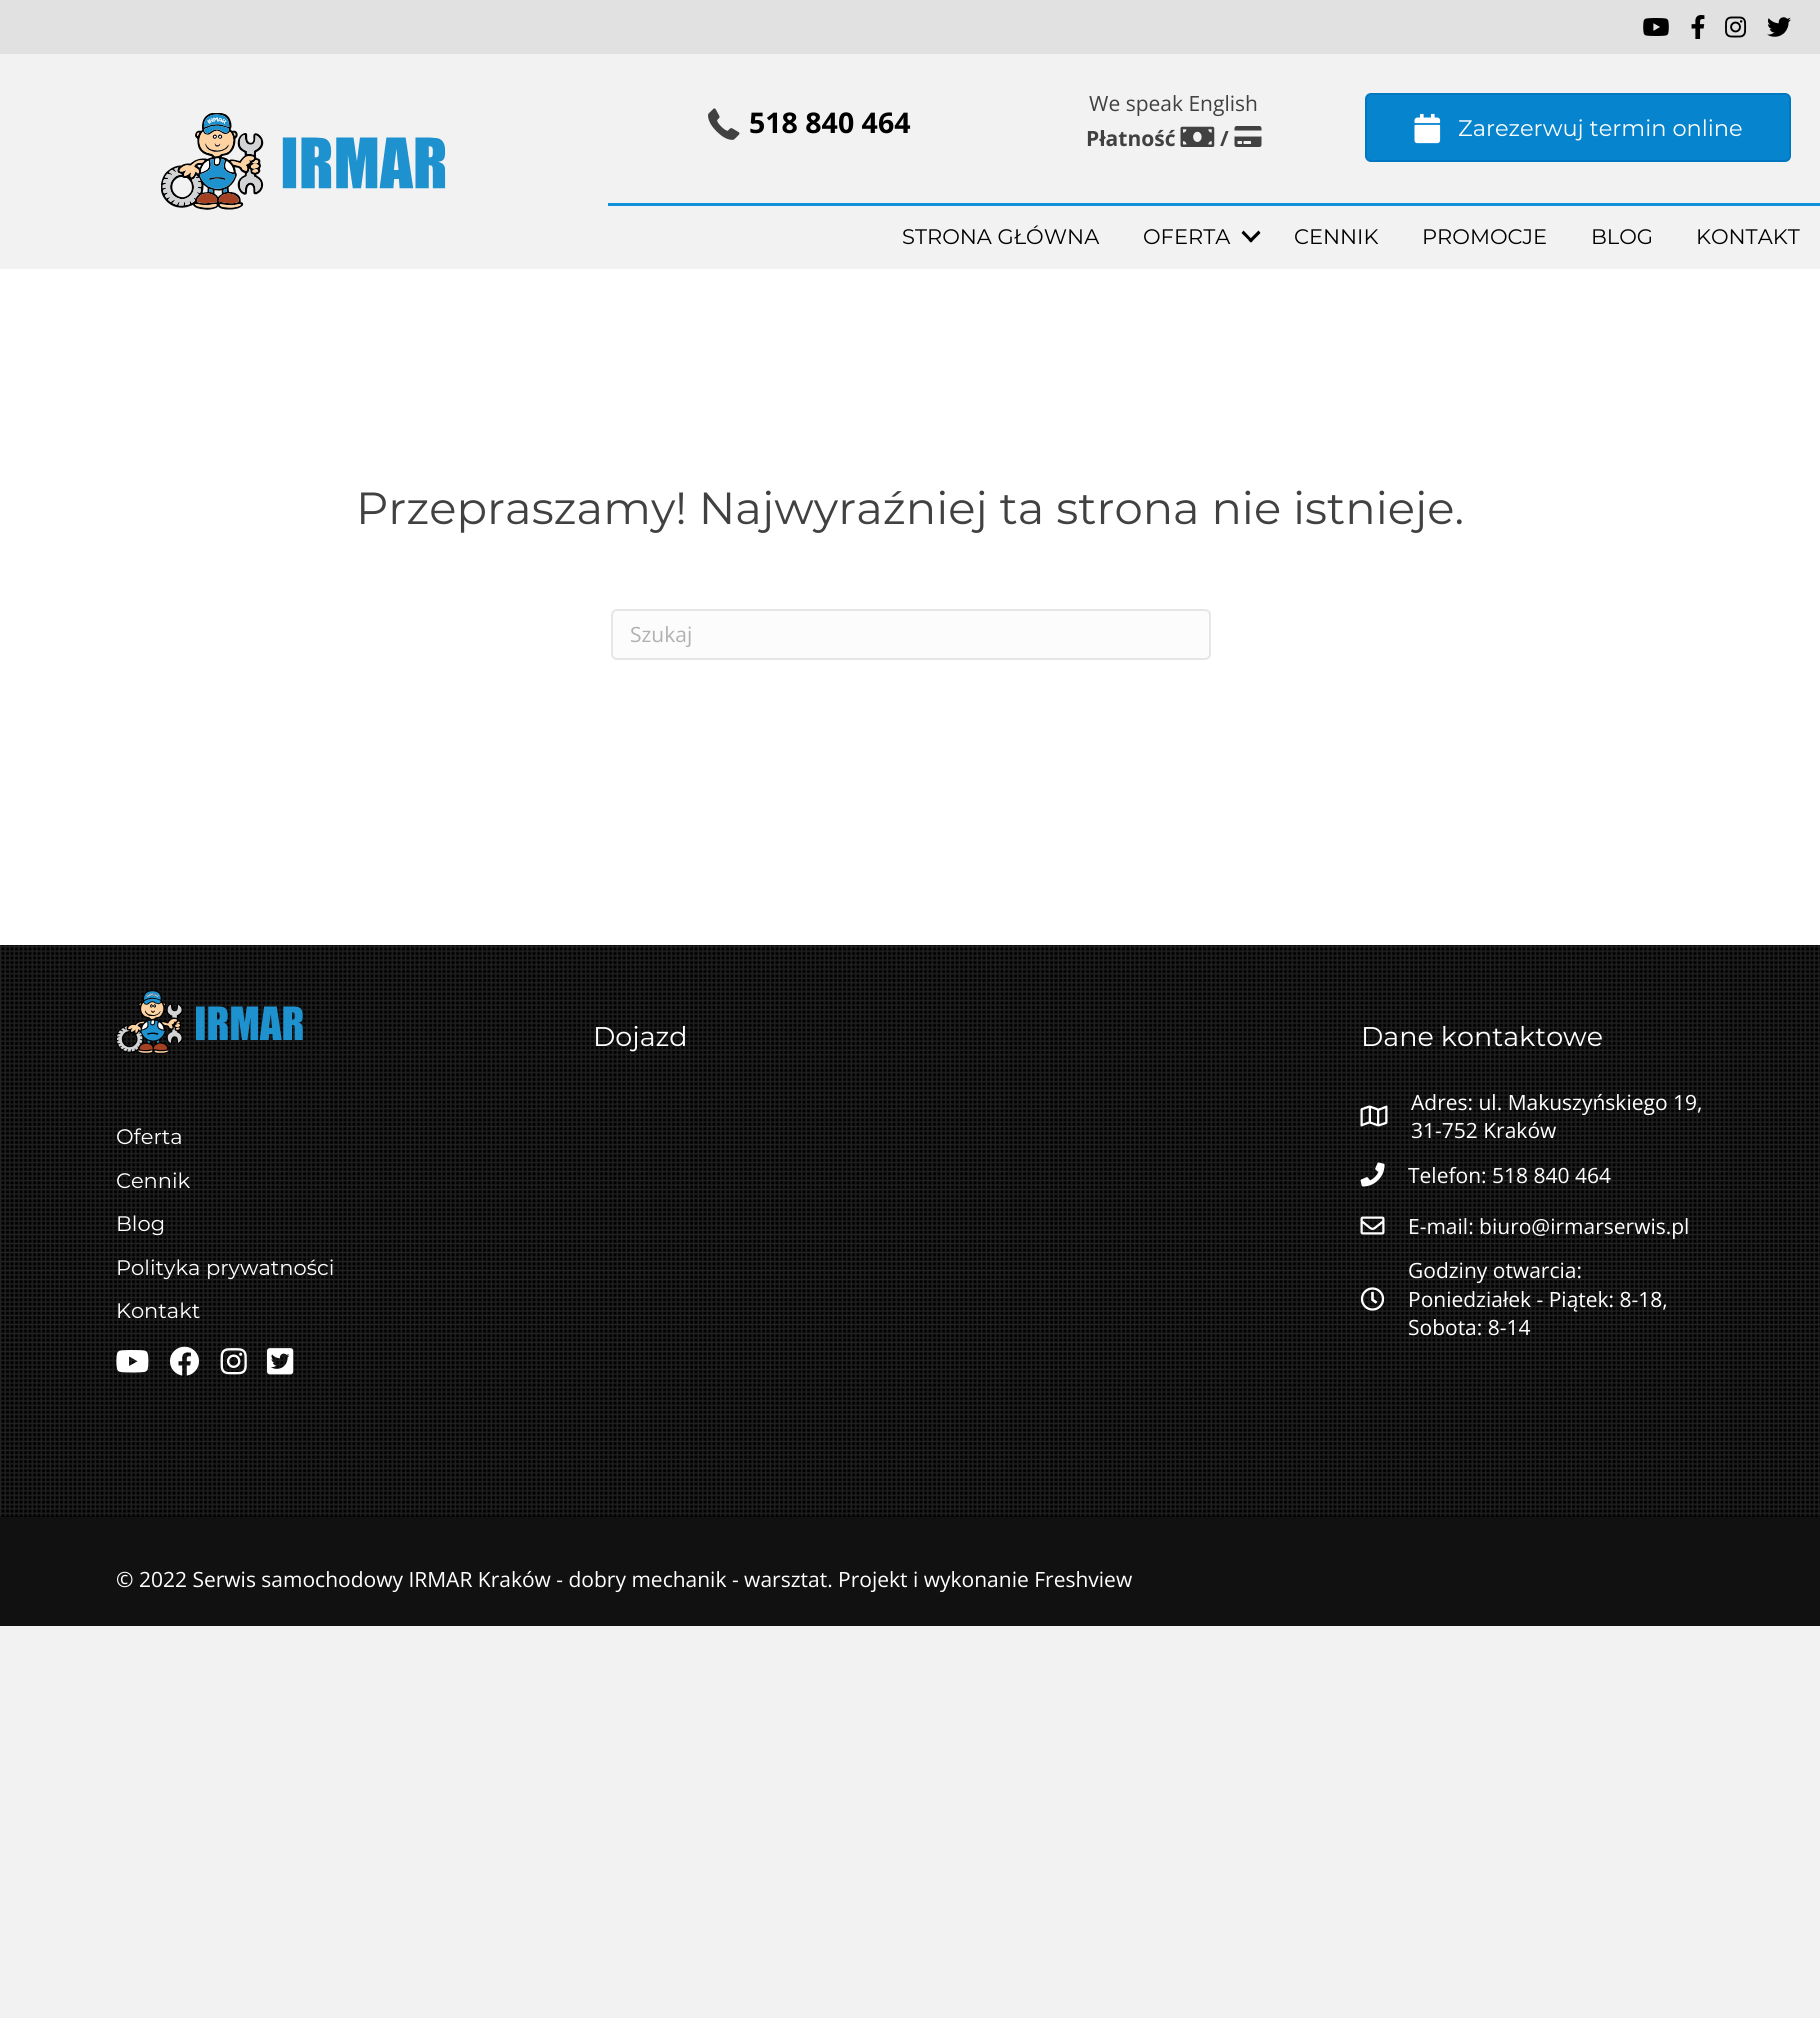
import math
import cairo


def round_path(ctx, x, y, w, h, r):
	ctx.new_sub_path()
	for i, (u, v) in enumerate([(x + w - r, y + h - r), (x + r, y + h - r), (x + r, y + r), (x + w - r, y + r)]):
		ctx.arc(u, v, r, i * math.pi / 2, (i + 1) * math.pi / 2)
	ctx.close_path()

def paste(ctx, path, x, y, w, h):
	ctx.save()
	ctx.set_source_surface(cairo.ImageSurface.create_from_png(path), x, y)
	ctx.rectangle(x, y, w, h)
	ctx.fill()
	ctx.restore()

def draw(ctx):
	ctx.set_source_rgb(0.949, 0.949, 0.949)
	ctx.paint()
	ctx.set_source_rgb(0.882, 0.882, 0.882)
	ctx.rectangle(0, 0, 1820, 54)
	ctx.fill()
	paste(ctx, 'media/1.png', 1643, 18, 26, 18)
	paste(ctx, 'media/2.png', 1691, 15, 14, 24)
	paste(ctx, 'media/3.png', 1725, 16, 22, 22)
	paste(ctx, 'media/4.png', 1767, 17, 24, 20)
	paste(ctx, 'media/5.png', 161, 113, 285, 97)
	paste(ctx, 'media/6.png', 708, 108, 32, 32)
	ctx.select_font_face('Open Sans', cairo.FONT_SLANT_NORMAL, cairo.FONT_WEIGHT_BOLD)
	ctx.set_font_size(28.5)
	ctx.set_source_rgb(0, 0, 0)
	ctx.move_to(749, 133)
	ctx.show_text('518 840 464')
	ctx.select_font_face('Open Sans')
	ctx.set_font_size(21)
	ctx.set_source_rgb(0.255, 0.255, 0.255)
	ctx.move_to(1089, 111)
	ctx.show_text('We speak English')
	ctx.select_font_face('Open Sans', cairo.FONT_SLANT_NORMAL, cairo.FONT_WEIGHT_BOLD)
	ctx.move_to(1086, 146)
	ctx.show_text('Płatność')
	paste(ctx, 'media/7.png', 1180, 126, 35, 21)
	ctx.move_to(1220, 146)
	ctx.show_text('/')
	paste(ctx, 'media/8.png', 1234, 126, 28, 21)
	ctx.set_source_rgb(0.024, 0.518, 0.804)
	round_path(ctx, 1366, 94, 424, 67, 5)
	ctx.fill_preserve()
	ctx.set_source_rgb(0, 0.471, 0.757)
	ctx.stroke()
	paste(ctx, 'media/9.png', 1414, 113, 27, 31)
	ctx.select_font_face('Montserrat Thin')
	ctx.set_font_size(22.5)
	ctx.set_source_rgb(1, 1, 1)
	ctx.move_to(1458, 136)
	ctx.show_text('Zarezerwuj termin online')
	ctx.set_source_rgb(0.071, 0.565, 0.851)
	ctx.rectangle(608, 203, 1212, 3)
	ctx.fill()
	ctx.set_font_size(21)
	ctx.set_source_rgb(0, 0, 0)
	ctx.move_to(902, 244)
	ctx.show_text('STRONA GŁÓWNA')
	ctx.move_to(1143, 244)
	ctx.show_text('OFERTA')
	ctx.new_path()
	ctx.move_to(1258.5, 230.5)
	ctx.line_to(1260.5, 233)
	ctx.line_to(1251, 242.5)
	ctx.line_to(1248.5, 240.5)
	ctx.close_path()
	ctx.fill()
	ctx.new_path()
	ctx.move_to(1243.5, 230.5)
	ctx.line_to(1253, 240.5)
	ctx.line_to(1251, 242.5)
	ctx.line_to(1241.5, 233)
	ctx.close_path()
	ctx.fill()
	for x, y, s in [
		(1294, 244, 'CENNIK'),
		(1422, 244, 'PROMOCJE'),
		(1591, 244, 'BLOG'),
		(1696, 244, 'KONTAKT'),
	]:
		ctx.move_to(x, y)
		ctx.show_text(s)
	ctx.set_source_rgb(1, 1, 1)
	ctx.rectangle(0, 269, 1820, 676)
	ctx.fill()
	ctx.set_font_size(45)
	ctx.set_source_rgb(0.255, 0.255, 0.255)
	ctx.move_to(356, 524)
	ctx.show_text('Przepraszamy! Najwyraźniej ta strona nie istnieje.')
	ctx.set_source_rgb(0.988, 0.988, 0.988)
	round_path(ctx, 612, 610, 598, 49, 5)
	ctx.fill_preserve()
	ctx.set_source_rgb(0.902, 0.902, 0.902)
	ctx.stroke()
	ctx.select_font_face('Open Sans')
	ctx.set_font_size(21)
	ctx.set_source_rgb(0.694, 0.694, 0.694)
	ctx.move_to(630, 642)
	ctx.show_text('Szukaj')
	ctx.set_source_rgb(0, 0, 0)
	ctx.rectangle(0, 1516, 1820, 1)
	ctx.fill()
	paste(ctx, 'media/10.png', 0, 945, 1820, 572)
	paste(ctx, 'media/11.png', 116, 990, 187, 65)
	ctx.select_font_face('Montserrat Thin')
	ctx.set_source_rgb(1, 1, 1)
	for x, y, s in [
		(116, 1144, 'Oferta'),
		(116, 1188, 'Cennik'),
		(116, 1231, 'Blog'),
		(116, 1275, 'Polityka prywatności'),
		(116, 1318, 'Kontakt'),
	]:
		ctx.move_to(x, y)
		ctx.show_text(s)
	paste(ctx, 'media/12.png', 116, 1350, 33, 23)
	paste(ctx, 'media/13.png', 170, 1346, 29, 30)
	paste(ctx, 'media/14.png', 220, 1348, 27, 27)
	paste(ctx, 'media/15.png', 267, 1348, 27, 27)
	ctx.set_font_size(27)
	ctx.move_to(593, 1046)
	ctx.show_text('Dojazd')
	ctx.move_to(1361, 1046)
	ctx.show_text('Dane kontaktowe')
	paste(ctx, 'media/16.png', 1360, 1105, 28, 22)
	ctx.select_font_face('Open Sans')
	ctx.set_font_size(21)
	ctx.move_to(1411, 1110)
	ctx.show_text('Adres: ul. Makuszyńskiego 19,')
	ctx.move_to(1411, 1138)
	ctx.show_text('31-752 Kraków')
	paste(ctx, 'media/17.png', 1360, 1162, 25, 25)
	ctx.move_to(1408, 1183)
	ctx.show_text('Telefon: 518 840 464')
	paste(ctx, 'media/18.png', 1360, 1216, 25, 19)
	ctx.move_to(1408, 1234)
	ctx.show_text('E-mail: biuro@irmarserwis.pl')
	paste(ctx, 'media/19.png', 1360, 1287, 25, 24)
	for x, y, s in [
		(1408, 1278, 'Godziny otwarcia:'),
		(1408, 1307, 'Poniedziałek - Piątek: 8-18,'),
		(1408, 1335, 'Sobota: 8-14'),
	]:
		ctx.move_to(x, y)
		ctx.show_text(s)
	ctx.set_source_rgb(0.067, 0.067, 0.067)
	ctx.rectangle(0, 1517, 1820, 109)
	ctx.fill()
	ctx.set_source_rgb(1, 1, 1)
	ctx.move_to(116, 1587)
	ctx.show_text('© 2022 Serwis samochodowy IRMAR Kraków - dobry mechanik - warsztat. Projekt i wykonanie Freshview')


surface = cairo.ImageSurface(cairo.FORMAT_RGB24, 1820, 2018)
ctx = cairo.Context(surface)
options = cairo.FontOptions()
options.set_hint_metrics(cairo.HINT_METRICS_OFF)
options.set_hint_style(cairo.HINT_STYLE_NONE)
ctx.set_font_options(options)
ctx.set_miter_limit(4)
draw(ctx)
surface.write_to_png('image.png')
